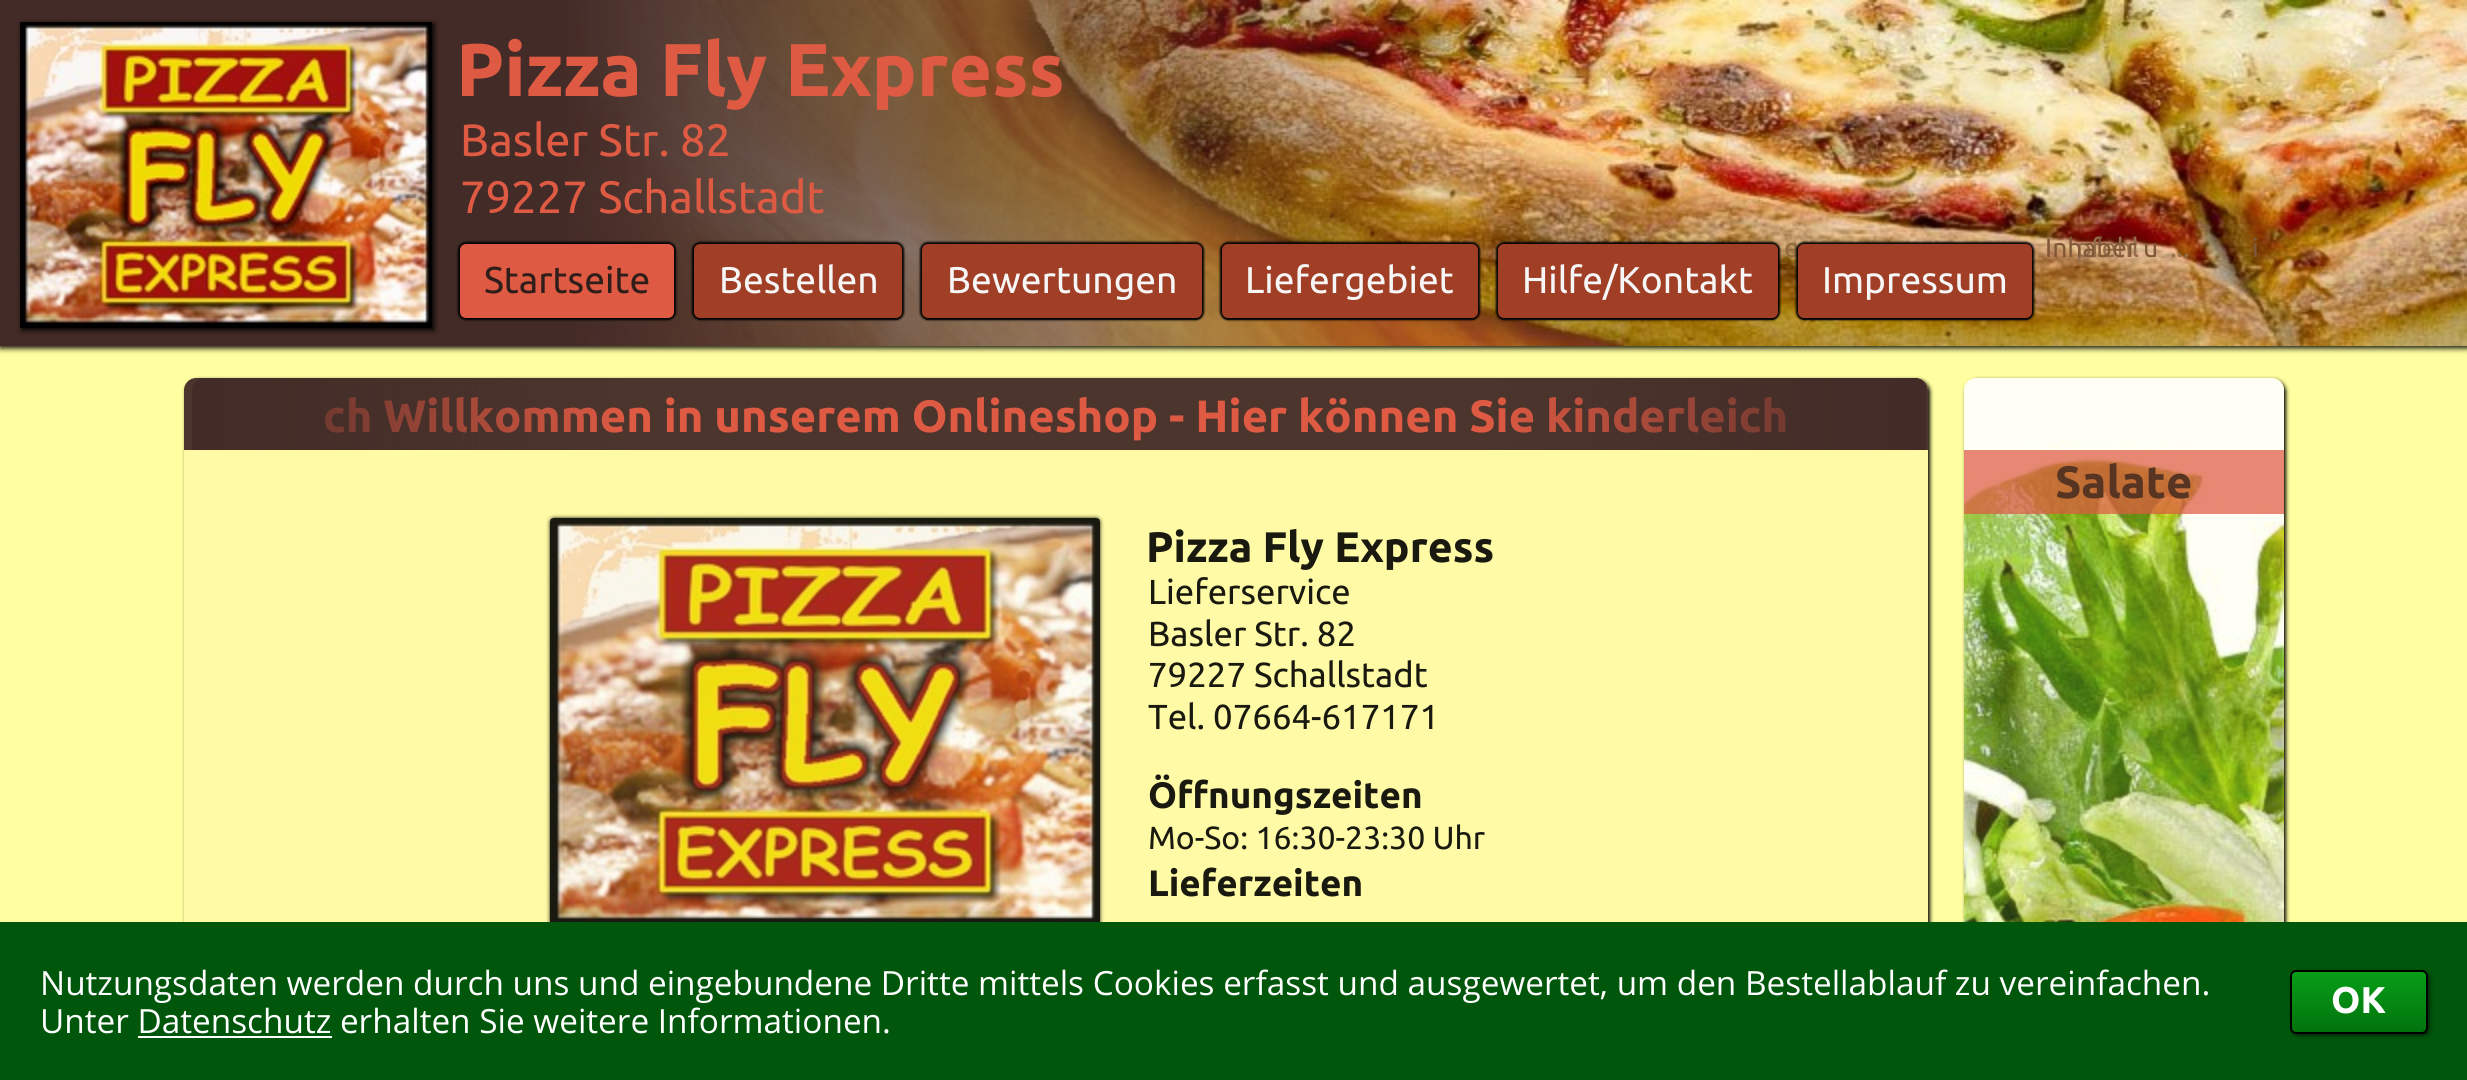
import math
import cairo


def round_path(ctx, x, y, w, h, r):
	ctx.new_sub_path()
	for i, (u, v) in enumerate([(x + w - r, y + h - r), (x + r, y + h - r), (x + r, y + r), (x + w - r, y + r)]):
		ctx.arc(u, v, r, i * math.pi / 2, (i + 1) * math.pi / 2)
	ctx.close_path()

def blur_box(ctx, x, y, w, h, r, blur, alpha):
	ctx.push_group_with_content(cairo.CONTENT_ALPHA)
	ctx.set_operator(cairo.OPERATOR_SOURCE)
	for i in range(15, -16, -2):
		e = blur * i / 6
		if min(w, h) + 2 * e > 0:
			ctx.set_source_rgba(0, 0, 0, alpha * math.erfc((i - 1) / 8.5) / 2)
			round_path(ctx, x - e, y - e, w + 2 * e, h + 2 * e, max(0, min(r + e + blur * .6, min(w, h) / 2 + e)))
			ctx.fill()
	ctx.mask(ctx.pop_group())

def paste(ctx, path, x, y, w, h):
	ctx.save()
	ctx.set_source_surface(cairo.ImageSurface.create_from_png(path), x, y)
	ctx.rectangle(x, y, w, h)
	ctx.fill()
	ctx.restore()

def draw(ctx):
	ctx.set_source_rgb(1, 0.996, 0.627)
	ctx.paint()
	ctx.set_source_rgb(0, 0, 0)
	blur_box(ctx, 0, 2, 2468, 346, 0, 3, 1)
	ctx.set_source_rgb(0.263, 0.169, 0.153)
	ctx.rectangle(0, 0, 564, 346)
	ctx.fill()
	paste(ctx, 'media/1.png', 564, 0, 1903, 346)
	ctx.set_source_rgb(0, 0, 0)
	blur_box(ctx, 22, 24, 412, 306, 0, 3, 1)
	paste(ctx, 'media/2.png', 20, 22, 412, 306)
	ctx.select_font_face('Ubuntu', cairo.FONT_SLANT_NORMAL, cairo.FONT_WEIGHT_BOLD)
	ctx.set_font_size(74.75)
	ctx.set_source_rgb(0.875, 0.353, 0.263)
	ctx.move_to(456, 96)
	ctx.show_text('Pizza Fly Express')
	ctx.select_font_face('Ubuntu')
	ctx.set_font_size(45.3)
	ctx.move_to(460, 156)
	ctx.show_text('Basler Str. 82')
	ctx.move_to(460, 213)
	ctx.show_text('79227 Schallstadt')
	ctx.set_source_rgba(0.263, 0.169, 0.153, 0.95)
	round_path(ctx, 1498, 244, 280, 76, 6)
	ctx.fill()
	ctx.set_font_size(26.5)
	ctx.set_source_rgb(0.58, 0.431, 0.298)
	ctx.move_to(2076, 257)
	ctx.show_text('pfehl')
	ctx.move_to(2170, 257)
	ctx.show_text('...')
	ctx.set_source_rgb(0, 0, 0)
	blur_box(ctx, 1496, 242, 284, 78, 8, 1, 1)
	ctx.set_source_rgb(0.627, 0.247, 0.149)
	round_path(ctx, 1498, 244, 280, 74, 6)
	ctx.fill()
	ctx.set_font_size(37.25)
	ctx.set_source_rgb(0.961, 0.961, 0.961)
	ctx.move_to(1522, 293)
	ctx.show_text('Hilfe/Kontakt')
	ctx.set_source_rgba(0.263, 0.169, 0.153, 0.95)
	round_path(ctx, 460, 244, 214, 76, 6)
	ctx.fill()
	ctx.set_source_rgb(0, 0, 0)
	blur_box(ctx, 458, 242, 218, 78, 8, 1, 1)
	ctx.set_source_rgb(0.875, 0.353, 0.263)
	round_path(ctx, 460, 244, 214, 74, 6)
	ctx.fill()
	ctx.set_source_rgb(0.184, 0.118, 0.102)
	ctx.move_to(484, 293)
	ctx.show_text('Startseite')
	ctx.set_source_rgba(0.263, 0.169, 0.153, 0.95)
	round_path(ctx, 694, 244, 208, 76, 6)
	ctx.fill()
	ctx.set_source_rgb(0, 0, 0)
	blur_box(ctx, 692, 242, 212, 78, 8, 1, 1)
	ctx.set_source_rgb(0.627, 0.247, 0.149)
	round_path(ctx, 694, 244, 208, 74, 6)
	ctx.fill()
	ctx.set_source_rgb(0.961, 0.961, 0.961)
	ctx.move_to(719, 293)
	ctx.show_text('Bestellen')
	ctx.set_source_rgba(0.263, 0.169, 0.153, 0.95)
	round_path(ctx, 922, 244, 280, 76, 6)
	ctx.fill()
	ctx.set_source_rgb(0, 0, 0)
	blur_box(ctx, 920, 242, 284, 78, 8, 1, 1)
	ctx.set_source_rgb(0.627, 0.247, 0.149)
	round_path(ctx, 922, 244, 280, 74, 6)
	ctx.fill()
	ctx.set_source_rgb(0.961, 0.961, 0.961)
	ctx.move_to(947, 293)
	ctx.show_text('Bewertungen')
	ctx.set_source_rgba(0.263, 0.169, 0.153, 0.95)
	round_path(ctx, 1222, 244, 256, 76, 6)
	ctx.fill()
	ctx.set_font_size(26.5)
	ctx.set_source_rgb(0.58, 0.42, 0.247)
	ctx.move_to(1784, 257)
	ctx.show_text('e')
	ctx.set_source_rgb(0, 0, 0)
	blur_box(ctx, 1220, 242, 260, 78, 8, 1, 1)
	ctx.set_source_rgb(0.627, 0.247, 0.149)
	round_path(ctx, 1222, 244, 256, 74, 6)
	ctx.fill()
	ctx.set_font_size(37.25)
	ctx.set_source_rgb(0.961, 0.961, 0.961)
	ctx.move_to(1245, 293)
	ctx.show_text('Liefergebiet')
	ctx.set_source_rgba(0.263, 0.169, 0.153, 0.95)
	round_path(ctx, 1798, 244, 234, 76, 6)
	ctx.fill()
	ctx.set_font_size(26.5)
	ctx.set_source_rgb(0.506, 0.349, 0.227)
	ctx.move_to(2045, 257)
	ctx.show_text('Inhaber u')
	ctx.move_to(2252, 257)
	ctx.show_text('i')
	ctx.set_source_rgb(0, 0, 0)
	blur_box(ctx, 1796, 242, 238, 78, 8, 1, 1)
	ctx.set_source_rgb(0.627, 0.247, 0.149)
	round_path(ctx, 1798, 244, 234, 74, 6)
	ctx.fill()
	ctx.set_font_size(37.25)
	ctx.set_source_rgb(0.961, 0.961, 0.961)
	ctx.move_to(1822, 293)
	ctx.show_text('Impressum')
	ctx.save()
	ctx.set_fill_rule(cairo.FILL_RULE_EVEN_ODD)
	ctx.new_path()
	ctx.move_to(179, 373)
	ctx.line_to(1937, 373)
	ctx.line_to(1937, 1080)
	ctx.line_to(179, 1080)
	ctx.close_path()
	ctx.move_to(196, 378)
	ctx.line_to(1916, 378)
	ctx.curve_to(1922.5, 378, 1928, 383.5, 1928, 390)
	ctx.line_to(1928, 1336)
	ctx.line_to(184, 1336)
	ctx.line_to(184, 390)
	ctx.curve_to(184, 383.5, 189.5, 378, 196, 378)
	ctx.close_path()
	ctx.clip()
	ctx.set_source_rgb(0, 0, 0)
	blur_box(ctx, 186, 380, 1744, 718, 12, 2, 1)
	ctx.restore()
	ctx.set_source_rgba(0.263, 0.169, 0.153, 0.95)
	ctx.new_path()
	ctx.move_to(196, 378)
	ctx.line_to(1916, 378)
	ctx.curve_to(1922.5, 378, 1928, 383.5, 1928, 390)
	ctx.line_to(1928, 450)
	ctx.line_to(184, 450)
	ctx.line_to(184, 390)
	ctx.curve_to(184, 383.5, 189.5, 378, 196, 378)
	ctx.close_path()
	ctx.fill()
	ctx.select_font_face('Ubuntu', cairo.FONT_SLANT_NORMAL, cairo.FONT_WEIGHT_BOLD)
	ctx.set_font_size(45.3)
	ctx.set_source_rgb(0.875, 0.353, 0.263)
	ctx.move_to(323, 432)
	ctx.show_text('ch Willkommen in unserem Onlineshop - Hier können Sie kinderleich')
	gradient = cairo.LinearGradient(192, 414, 632, 414)
	gradient.add_color_stop_rgba(0, 0.263, 0.169, 0.153, 1)
	gradient.add_color_stop_rgba(1, 0.263, 0.169, 0.153, 0)
	ctx.set_source(gradient)
	ctx.new_path()
	ctx.move_to(204, 378)
	ctx.line_to(632, 378)
	ctx.line_to(632, 450)
	ctx.line_to(192, 450)
	ctx.line_to(192, 390)
	ctx.curve_to(192, 383.5, 197.5, 378, 204, 378)
	ctx.close_path()
	ctx.fill()
	gradient = cairo.LinearGradient(1926, 414, 1486, 414)
	gradient.add_color_stop_rgba(0, 0.263, 0.169, 0.153, 1)
	gradient.add_color_stop_rgba(1, 0.263, 0.169, 0.153, 0)
	ctx.set_source(gradient)
	ctx.new_path()
	ctx.move_to(1914, 378)
	ctx.line_to(1486, 378)
	ctx.line_to(1486, 450)
	ctx.line_to(1926, 450)
	ctx.line_to(1926, 390)
	ctx.curve_to(1926, 383, 1921, 378, 1914, 378)
	ctx.close_path()
	ctx.fill()
	ctx.set_source_rgb(1, 0.98, 0.647)
	ctx.rectangle(184, 450, 1744, 472)
	ctx.fill()
	ctx.save()
	ctx.set_fill_rule(cairo.FILL_RULE_EVEN_ODD)
	ctx.new_path()
	ctx.move_to(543, 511)
	ctx.line_to(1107, 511)
	ctx.line_to(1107, 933)
	ctx.line_to(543, 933)
	ctx.close_path()
	ctx.move_to(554, 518)
	ctx.line_to(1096, 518)
	ctx.curve_to(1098, 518, 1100, 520, 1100, 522)
	ctx.line_to(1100, 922)
	ctx.curve_to(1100, 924, 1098, 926, 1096, 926)
	ctx.line_to(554, 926)
	ctx.curve_to(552, 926, 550, 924, 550, 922)
	ctx.line_to(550, 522)
	ctx.curve_to(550, 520, 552, 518, 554, 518)
	ctx.close_path()
	ctx.clip()
	ctx.set_source_rgb(0.102, 0.098, 0.063)
	blur_box(ctx, 550, 518, 550, 408, 4, 2, 1)
	ctx.restore()
	paste(ctx, 'media/3.png', 550, 518, 550, 404)
	ctx.set_font_size(42.75)
	ctx.set_source_rgb(0.102, 0.098, 0.063)
	ctx.move_to(1146, 562)
	ctx.show_text('Pizza Fly Express')
	ctx.select_font_face('Ubuntu')
	ctx.set_font_size(34.75)
	for x, y, s in [
		(1148, 604, 'Lieferservice'),
		(1148, 646, 'Basler Str. 82'),
		(1148, 687, '79227 Schallstadt'),
		(1148, 729, 'Tel. 07664-617171'),
	]:
		ctx.move_to(x, y)
		ctx.show_text(s)
	ctx.select_font_face('Ubuntu', cairo.FONT_SLANT_NORMAL, cairo.FONT_WEIGHT_BOLD)
	ctx.set_font_size(36.75)
	ctx.move_to(1148, 808)
	ctx.show_text('Öffnungszeiten')
	ctx.select_font_face('Ubuntu')
	ctx.set_font_size(32)
	ctx.move_to(1148, 849)
	ctx.show_text('Mo-So: 16:30-23:30 Uhr')
	ctx.select_font_face('Ubuntu', cairo.FONT_SLANT_NORMAL, cairo.FONT_WEIGHT_BOLD)
	ctx.set_font_size(36.75)
	ctx.move_to(1148, 896)
	ctx.show_text('Lieferzeiten')
	ctx.save()
	ctx.set_fill_rule(cairo.FILL_RULE_EVEN_ODD)
	ctx.new_path()
	ctx.move_to(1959, 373)
	ctx.line_to(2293, 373)
	ctx.line_to(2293, 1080)
	ctx.line_to(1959, 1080)
	ctx.close_path()
	ctx.move_to(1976, 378)
	ctx.line_to(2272, 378)
	ctx.curve_to(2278.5, 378, 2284, 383.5, 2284, 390)
	ctx.line_to(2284, 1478)
	ctx.line_to(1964, 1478)
	ctx.line_to(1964, 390)
	ctx.curve_to(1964, 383.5, 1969.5, 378, 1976, 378)
	ctx.close_path()
	ctx.clip()
	ctx.set_source_rgb(0, 0, 0)
	blur_box(ctx, 1966, 380, 320, 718, 12, 2, 1)
	ctx.restore()
	paste(ctx, 'media/4.png', 1964, 378, 320, 544)
	ctx.set_source_rgba(0.875, 0.353, 0.263, 0.72)
	ctx.rectangle(1964, 450, 320, 64)
	ctx.fill()
	ctx.set_font_size(45.3)
	ctx.set_source_rgb(0.345, 0.208, 0.133)
	ctx.move_to(2055, 498)
	ctx.show_text('Salate')
	ctx.set_source_rgb(0, 0.341, 0.043)
	ctx.rectangle(0, 922, 2467, 158)
	ctx.fill()
	ctx.select_font_face('Open Sans')
	ctx.set_font_size(33.33)
	ctx.set_source_rgb(1, 1, 1)
	ctx.move_to(40, 995)
	ctx.show_text('Nutzungsdaten werden durch uns und eingebundene Dritte mittels Cookies erfasst und ausgewertet, um den Bestellablauf zu vereinfachen.')
	ctx.move_to(40, 1033)
	ctx.show_text('Unter Datenschutz erhalten Sie weitere Informationen.')
	ctx.rectangle(138, 1036, 194, 2)
	ctx.fill()
	ctx.set_source_rgb(0, 0, 0)
	blur_box(ctx, 2294, 974, 134, 60, 4, 3, 1)
	ctx.save()
	round_path(ctx, 2290, 970, 138, 64, 6)
	ctx.clip()
	gradient = cairo.LinearGradient(2359, 972, 2359, 1032)
	gradient.add_color_stop_rgba(0, 0.031, 0.62, 0.09, 1)
	gradient.add_color_stop_rgba(1, 0.004, 0.451, 0.051, 1)
	ctx.set_source(gradient)
	ctx.rectangle(2290, 972, 138, 60)
	ctx.fill()
	ctx.restore()
	round_path(ctx, 2291, 971, 136, 62, 5)
	ctx.set_source_rgb(0, 0, 0)
	ctx.stroke()
	ctx.select_font_face('Ubuntu', cairo.FONT_SLANT_NORMAL, cairo.FONT_WEIGHT_BOLD)
	ctx.set_font_size(37.25)
	ctx.set_source_rgb(1, 1, 1)
	ctx.move_to(2331, 1013)
	ctx.show_text('OK')


surface = cairo.ImageSurface(cairo.FORMAT_RGB24, 2467, 1080)
ctx = cairo.Context(surface)
options = cairo.FontOptions()
options.set_hint_metrics(cairo.HINT_METRICS_OFF)
options.set_hint_style(cairo.HINT_STYLE_NONE)
ctx.set_font_options(options)
ctx.set_miter_limit(4)
draw(ctx)
surface.write_to_png('image.png')
